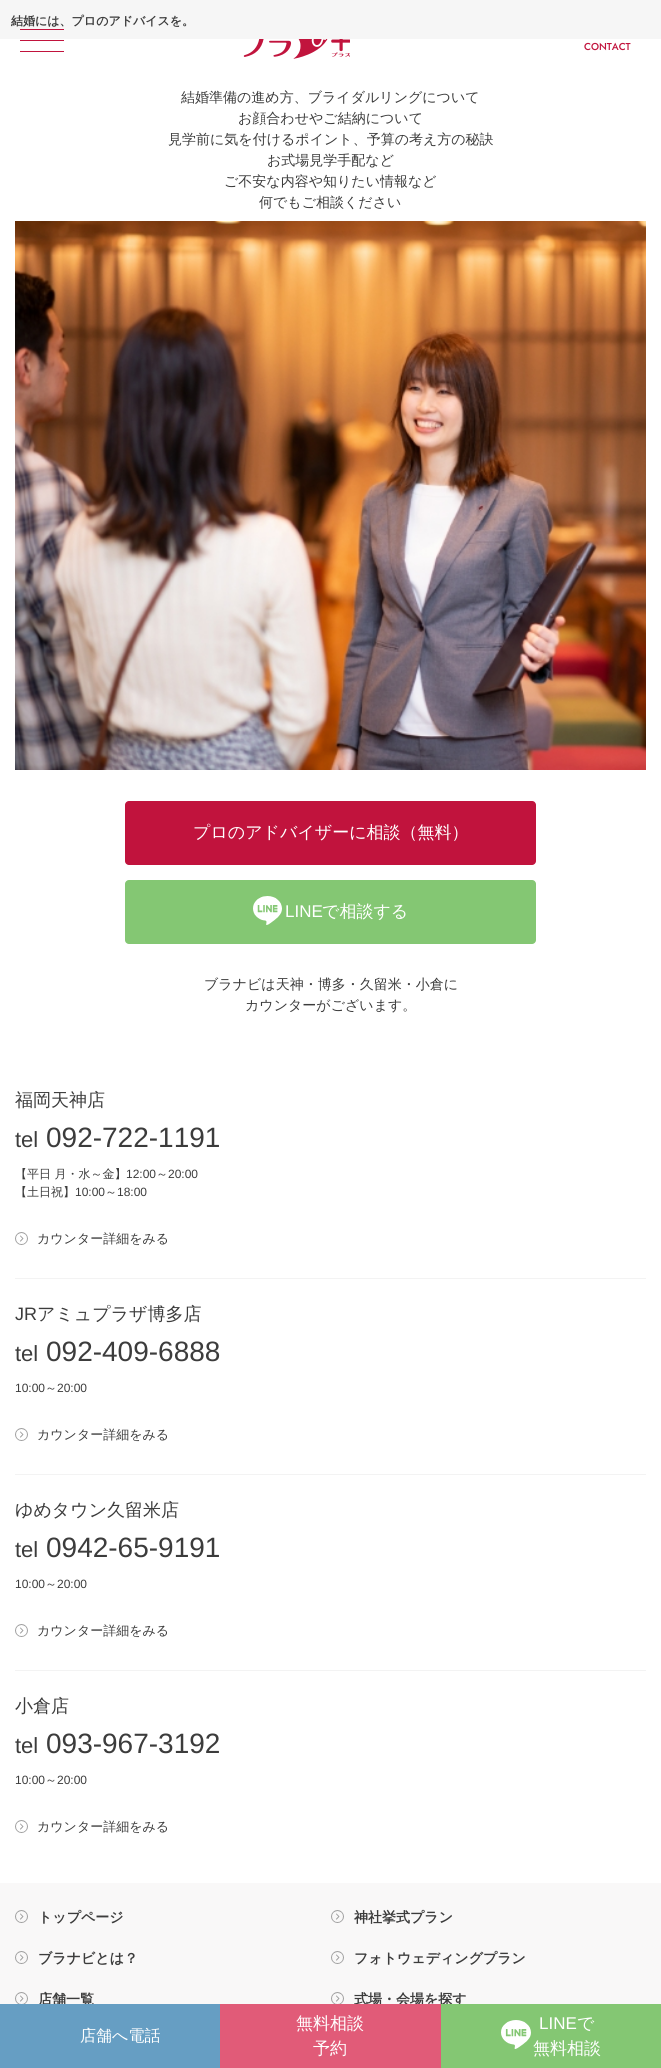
import math
import cairo


def round_path(ctx, x, y, w, h, r):
	ctx.new_sub_path()
	for i, (u, v) in enumerate([(x + w - r, y + h - r), (x + r, y + h - r), (x + r, y + r), (x + w - r, y + r)]):
		ctx.arc(u, v, r, i * math.pi / 2, (i + 1) * math.pi / 2)
	ctx.close_path()

def paste(ctx, path, x, y, w, h):
	ctx.save()
	ctx.set_source_surface(cairo.ImageSurface.create_from_png(path), x, y)
	ctx.rectangle(x, y, w, h)
	ctx.fill()
	ctx.restore()

def draw(ctx):
	ctx.set_source_rgb(1, 1, 1)
	ctx.paint()
	ctx.set_source_rgb(0.961, 0.961, 0.961)
	ctx.rectangle(0, 0, 661, 39)
	ctx.fill()
	ctx.select_font_face('WenQuanYi Zen Hei', cairo.FONT_SLANT_NORMAL, cairo.FONT_WEIGHT_BOLD)
	ctx.set_font_size(12)
	ctx.set_source_rgb(0.235, 0.235, 0.235)
	ctx.move_to(11, 25)
	ctx.show_text('結婚には、プロのアドバイスを。')
	paste(ctx, 'media/1.png', 243, 39, 107, 20)
	ctx.set_source_rgb(0.757, 0.078, 0.239)
	ctx.rectangle(20, 40, 44, 1)
	ctx.rectangle(20, 29, 44, 1)
	ctx.rectangle(20, 51, 44, 1)
	ctx.fill()
	ctx.select_font_face('Jost Medium')
	ctx.set_font_size(10)
	ctx.move_to(584, 50)
	ctx.show_text('CONTACT')
	ctx.select_font_face('WenQuanYi Zen Hei Medium')
	ctx.set_font_size(14)
	ctx.set_source_rgb(0.235, 0.235, 0.235)
	for x, y, s in [
		(181, 102, '結婚準備の進め方、ブライダルリングについて'),
		(238, 123, 'お顔合わせやご結納について'),
		(168, 144, '見学前に気を付けるポイント、予算の考え方の秘訣'),
		(267, 165, 'お式場見学手配など'),
		(224, 186, 'ご不安な内容や知りたい情報など'),
		(259, 207, '何でもご相談ください'),
	]:
		ctx.move_to(x, y)
		ctx.show_text(s)
	paste(ctx, 'media/2.png', 15, 221, 631, 549)
	ctx.set_source_rgb(0.757, 0.078, 0.239)
	round_path(ctx, 125, 801, 411, 64, 4)
	ctx.fill()
	ctx.set_font_size(17)
	ctx.set_source_rgb(1, 1, 1)
	ctx.move_to(193, 838)
	ctx.show_text('プロのアドバイザーに相談（無料）')
	ctx.set_source_rgb(0.518, 0.78, 0.451)
	round_path(ctx, 125, 880, 411, 64, 4)
	ctx.fill()
	paste(ctx, 'media/3.png', 253, 896, 29, 29)
	ctx.select_font_face('Liberation Sans')
	ctx.set_source_rgb(1, 1, 1)
	ctx.move_to(285, 917)
	ctx.show_text('LINE')
	ctx.select_font_face('WenQuanYi Zen Hei Medium')
	ctx.move_to(322, 917)
	ctx.show_text('で相談する')
	ctx.set_font_size(14)
	ctx.set_source_rgb(0.235, 0.235, 0.235)
	ctx.move_to(204, 989)
	ctx.show_text('ブラナビは天神・博多・久留米・小倉に')
	ctx.move_to(245, 1010)
	ctx.show_text('カウンターがございます。')
	ctx.set_source_rgb(0.953, 0.953, 0.953)
	ctx.rectangle(15, 1278, 631, 1)
	ctx.fill()
	ctx.set_font_size(18)
	ctx.set_source_rgb(0.235, 0.235, 0.235)
	ctx.move_to(15, 1106)
	ctx.show_text('福岡天神店')
	ctx.select_font_face('Liberation Sans')
	ctx.set_font_size(22)
	ctx.move_to(15, 1147)
	ctx.show_text('tel')
	ctx.set_font_size(28)
	ctx.move_to(46, 1147)
	ctx.show_text('092-722-1191')
	ctx.select_font_face('WenQuanYi Zen Hei Medium')
	ctx.set_font_size(12)
	ctx.move_to(15, 1178)
	ctx.show_text('【平日 月・水～金】')
	ctx.select_font_face('Liberation Sans')
	ctx.move_to(126, 1178)
	ctx.show_text('12:00')
	ctx.select_font_face('WenQuanYi Zen Hei Medium')
	ctx.move_to(156, 1178)
	ctx.show_text('～')
	ctx.select_font_face('Liberation Sans')
	ctx.move_to(168, 1178)
	ctx.show_text('20:00')
	ctx.select_font_face('WenQuanYi Zen Hei Medium')
	ctx.move_to(15, 1196)
	ctx.show_text('【土日祝】')
	ctx.select_font_face('Liberation Sans')
	ctx.move_to(75, 1196)
	ctx.show_text('10:00')
	ctx.select_font_face('WenQuanYi Zen Hei Medium')
	ctx.move_to(105, 1196)
	ctx.show_text('～')
	ctx.select_font_face('Liberation Sans')
	ctx.move_to(117, 1196)
	ctx.show_text('18:00')
	paste(ctx, 'media/4.png', 15, 1232, 13, 13)
	ctx.select_font_face('WenQuanYi Zen Hei Medium')
	ctx.set_font_size(13)
	ctx.move_to(37, 1243)
	ctx.show_text('カウンター詳細をみる')
	ctx.set_source_rgb(0.953, 0.953, 0.953)
	ctx.rectangle(15, 1474, 631, 1)
	ctx.fill()
	ctx.select_font_face('Liberation Sans')
	ctx.set_font_size(18)
	ctx.set_source_rgb(0.235, 0.235, 0.235)
	ctx.move_to(15, 1320)
	ctx.show_text('JR')
	ctx.select_font_face('WenQuanYi Zen Hei Medium')
	ctx.move_to(37, 1320)
	ctx.show_text('アミュプラザ博多店')
	ctx.select_font_face('Liberation Sans')
	ctx.set_font_size(22)
	ctx.move_to(15, 1361)
	ctx.show_text('tel')
	ctx.set_font_size(28)
	ctx.move_to(46, 1361)
	ctx.show_text('092-409-6888')
	ctx.set_font_size(12)
	ctx.move_to(15, 1392)
	ctx.show_text('10:00')
	ctx.select_font_face('WenQuanYi Zen Hei Medium')
	ctx.move_to(45, 1392)
	ctx.show_text('～')
	ctx.select_font_face('Liberation Sans')
	ctx.move_to(57, 1392)
	ctx.show_text('20:00')
	paste(ctx, 'media/4.png', 15, 1428, 13, 13)
	ctx.select_font_face('WenQuanYi Zen Hei Medium')
	ctx.set_font_size(13)
	ctx.move_to(37, 1439)
	ctx.show_text('カウンター詳細をみる')
	ctx.set_source_rgb(0.953, 0.953, 0.953)
	ctx.rectangle(15, 1670, 631, 1)
	ctx.fill()
	ctx.set_font_size(18)
	ctx.set_source_rgb(0.235, 0.235, 0.235)
	ctx.move_to(15, 1516)
	ctx.show_text('ゆめタウン久留米店')
	ctx.select_font_face('Liberation Sans')
	ctx.set_font_size(22)
	ctx.move_to(15, 1557)
	ctx.show_text('tel')
	ctx.set_font_size(28)
	ctx.move_to(46, 1557)
	ctx.show_text('0942-65-9191')
	ctx.set_font_size(12)
	ctx.move_to(15, 1588)
	ctx.show_text('10:00')
	ctx.select_font_face('WenQuanYi Zen Hei Medium')
	ctx.move_to(45, 1588)
	ctx.show_text('～')
	ctx.select_font_face('Liberation Sans')
	ctx.move_to(57, 1588)
	ctx.show_text('20:00')
	paste(ctx, 'media/4.png', 15, 1624, 13, 13)
	ctx.select_font_face('WenQuanYi Zen Hei Medium')
	ctx.set_font_size(13)
	ctx.move_to(37, 1635)
	ctx.show_text('カウンター詳細をみる')
	ctx.set_font_size(18)
	ctx.move_to(15, 1712)
	ctx.show_text('小倉店')
	ctx.select_font_face('Liberation Sans')
	ctx.set_font_size(22)
	ctx.move_to(15, 1753)
	ctx.show_text('tel')
	ctx.set_font_size(28)
	ctx.move_to(46, 1753)
	ctx.show_text('093-967-3192')
	ctx.set_font_size(12)
	ctx.move_to(15, 1784)
	ctx.show_text('10:00')
	ctx.select_font_face('WenQuanYi Zen Hei Medium')
	ctx.move_to(45, 1784)
	ctx.show_text('～')
	ctx.select_font_face('Liberation Sans')
	ctx.move_to(57, 1784)
	ctx.show_text('20:00')
	paste(ctx, 'media/4.png', 15, 1820, 13, 13)
	ctx.select_font_face('WenQuanYi Zen Hei Medium')
	ctx.set_font_size(13)
	ctx.move_to(37, 1831)
	ctx.show_text('カウンター詳細をみる')
	ctx.set_source_rgb(0.976, 0.969, 0.969)
	ctx.rectangle(0, 1883, 661, 121)
	ctx.fill()
	paste(ctx, 'media/5.png', 15, 1910, 13, 13)
	ctx.select_font_face('WenQuanYi Zen Hei', cairo.FONT_SLANT_NORMAL, cairo.FONT_WEIGHT_BOLD)
	ctx.set_font_size(14)
	ctx.set_source_rgb(0.235, 0.235, 0.235)
	ctx.move_to(38, 1922)
	ctx.show_text('トップページ')
	paste(ctx, 'media/5.png', 15, 1951, 13, 13)
	ctx.move_to(38, 1963)
	ctx.show_text('ブラナビとは？')
	paste(ctx, 'media/6.png', 15, 1992, 13, 12)
	ctx.move_to(38, 2004)
	ctx.show_text('店舗一覧')
	paste(ctx, 'media/5.png', 331, 1910, 13, 13)
	ctx.move_to(354, 1922)
	ctx.show_text('神社挙式プラン')
	paste(ctx, 'media/5.png', 331, 1951, 13, 13)
	ctx.move_to(354, 1963)
	ctx.show_text('フォトウェディングプラン')
	paste(ctx, 'media/6.png', 331, 1992, 13, 12)
	ctx.move_to(354, 2004)
	ctx.show_text('式場・会場を探す')
	ctx.set_source_rgb(0.4, 0.62, 0.765)
	ctx.rectangle(0, 2004, 220, 64)
	ctx.fill()
	ctx.select_font_face('WenQuanYi Zen Hei Medium')
	ctx.set_font_size(16)
	ctx.set_source_rgb(1, 1, 1)
	ctx.move_to(80, 2041)
	ctx.show_text('店舗へ電話')
	ctx.set_source_rgb(0.882, 0.357, 0.471)
	ctx.rectangle(220, 2004, 221, 64)
	ctx.fill()
	ctx.set_font_size(17)
	ctx.set_source_rgb(1, 1, 1)
	ctx.move_to(296, 2029)
	ctx.show_text('無料相談')
	ctx.move_to(313, 2054)
	ctx.show_text('予約')
	ctx.set_source_rgb(0.518, 0.78, 0.451)
	ctx.rectangle(441, 2004, 220, 64)
	ctx.fill()
	paste(ctx, 'media/7.png', 501, 2020, 30, 29)
	ctx.select_font_face('Liberation Sans')
	ctx.set_source_rgb(1, 1, 1)
	ctx.move_to(539, 2029)
	ctx.show_text('LINE')
	ctx.select_font_face('WenQuanYi Zen Hei Medium')
	ctx.move_to(577, 2029)
	ctx.show_text('で')
	ctx.move_to(533, 2054)
	ctx.show_text('無料相談')


surface = cairo.ImageSurface(cairo.FORMAT_RGB24, 661, 2068)
ctx = cairo.Context(surface)
options = cairo.FontOptions()
options.set_hint_metrics(cairo.HINT_METRICS_OFF)
options.set_hint_style(cairo.HINT_STYLE_NONE)
ctx.set_font_options(options)
ctx.set_miter_limit(4)
draw(ctx)
surface.write_to_png('image.png')
